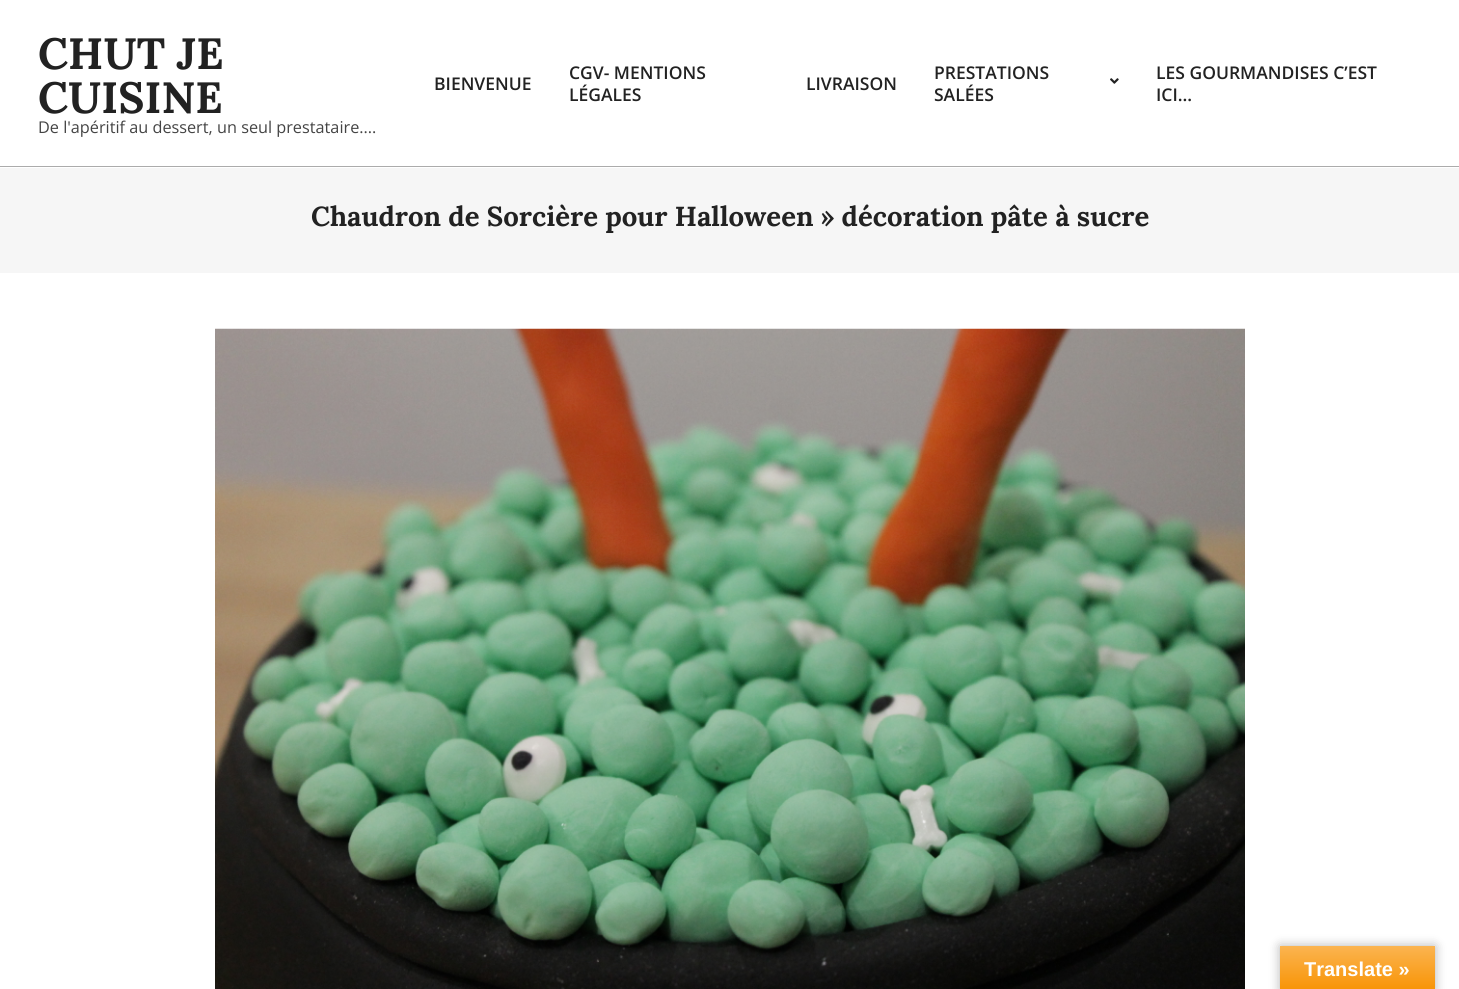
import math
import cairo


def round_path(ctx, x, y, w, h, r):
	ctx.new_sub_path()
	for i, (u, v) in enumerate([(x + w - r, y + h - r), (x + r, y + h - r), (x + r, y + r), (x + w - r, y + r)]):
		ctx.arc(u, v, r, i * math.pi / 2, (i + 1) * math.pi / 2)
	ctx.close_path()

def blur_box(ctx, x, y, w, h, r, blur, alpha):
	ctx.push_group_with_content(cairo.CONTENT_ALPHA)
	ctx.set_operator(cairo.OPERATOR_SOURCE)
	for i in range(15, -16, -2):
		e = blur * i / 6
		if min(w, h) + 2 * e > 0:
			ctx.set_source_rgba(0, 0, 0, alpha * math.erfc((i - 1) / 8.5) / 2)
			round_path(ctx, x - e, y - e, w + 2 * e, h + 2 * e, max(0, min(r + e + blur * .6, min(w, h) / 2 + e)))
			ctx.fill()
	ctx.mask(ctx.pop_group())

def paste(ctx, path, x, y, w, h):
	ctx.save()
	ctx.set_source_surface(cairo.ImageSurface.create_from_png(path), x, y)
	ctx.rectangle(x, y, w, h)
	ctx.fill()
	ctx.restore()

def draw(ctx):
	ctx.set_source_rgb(1, 1, 1)
	ctx.paint()
	ctx.set_source_rgb(0.671, 0.671, 0.671)
	ctx.rectangle(0, 166, 1459, 1)
	ctx.fill()
	ctx.select_font_face('Lora', cairo.FONT_SLANT_NORMAL, cairo.FONT_WEIGHT_BOLD)
	ctx.set_font_size(43.75)
	ctx.set_source_rgb(0.133, 0.133, 0.133)
	ctx.move_to(38, 69)
	ctx.show_text('CHUT JE')
	ctx.move_to(38, 113)
	ctx.show_text('CUISINE')
	ctx.select_font_face('Open Sans')
	ctx.set_font_size(16.25)
	ctx.set_source_rgb(0.267, 0.267, 0.267)
	ctx.move_to(38, 133)
	ctx.show_text('De l\'apéritif au dessert, un seul prestataire....')
	ctx.select_font_face('Open Sans SemiBold')
	ctx.set_font_size(17.5)
	ctx.set_source_rgb(0.133, 0.133, 0.133)
	for x, y, s in [
		(434, 90, 'BIENVENUE'),
		(569, 79, 'CGV- MENTIONS'),
		(569, 101, 'LÉGALES'),
		(806, 90, 'LIVRAISON'),
		(934, 79, 'PRESTATIONS'),
	]:
		ctx.move_to(x, y)
		ctx.show_text(s)
	paste(ctx, 'media/1.png', 1110, 78, 9, 6)
	for x, y, s in [
		(934, 101, 'SALÉES'),
		(1156, 79, 'LES GOURMANDISES C’EST'),
		(1156, 101, 'ICI…'),
	]:
		ctx.move_to(x, y)
		ctx.show_text(s)
	ctx.set_source_rgb(0.961, 0.961, 0.961)
	ctx.rectangle(0, 168, 1459, 105)
	ctx.fill()
	ctx.select_font_face('Lora', cairo.FONT_SLANT_NORMAL, cairo.FONT_WEIGHT_BOLD)
	ctx.set_font_size(27.5)
	ctx.set_source_rgb(0.133, 0.133, 0.133)
	ctx.move_to(311, 226)
	ctx.show_text('Chaudron de Sorcière pour Halloween » décoration pâte à sucre')
	paste(ctx, 'media/2.png', 215, 328, 1030, 661)
	ctx.set_source_rgb(0, 0, 0)
	blur_box(ctx, 1280, 946, 155, 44, 0, 5.5, 0.3)
	gradient = cairo.LinearGradient(1358, 946, 1358, 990)
	gradient.add_color_stop_rgba(0, 0.984, 0.706, 0.314, 1)
	gradient.add_color_stop_rgba(1, 0.973, 0.58, 0.024, 1)
	ctx.set_source(gradient)
	ctx.rectangle(1280, 946, 155, 43)
	ctx.fill()
	ctx.select_font_face('Liberation Sans', cairo.FONT_SLANT_NORMAL, cairo.FONT_WEIGHT_BOLD)
	ctx.set_font_size(20)
	ctx.set_source_rgb(1, 1, 1)
	ctx.move_to(1304, 976)
	ctx.show_text('Translate »')


surface = cairo.ImageSurface(cairo.FORMAT_RGB24, 1459, 989)
ctx = cairo.Context(surface)
options = cairo.FontOptions()
options.set_hint_metrics(cairo.HINT_METRICS_OFF)
options.set_hint_style(cairo.HINT_STYLE_NONE)
ctx.set_font_options(options)
ctx.set_miter_limit(4)
draw(ctx)
surface.write_to_png('image.png')
